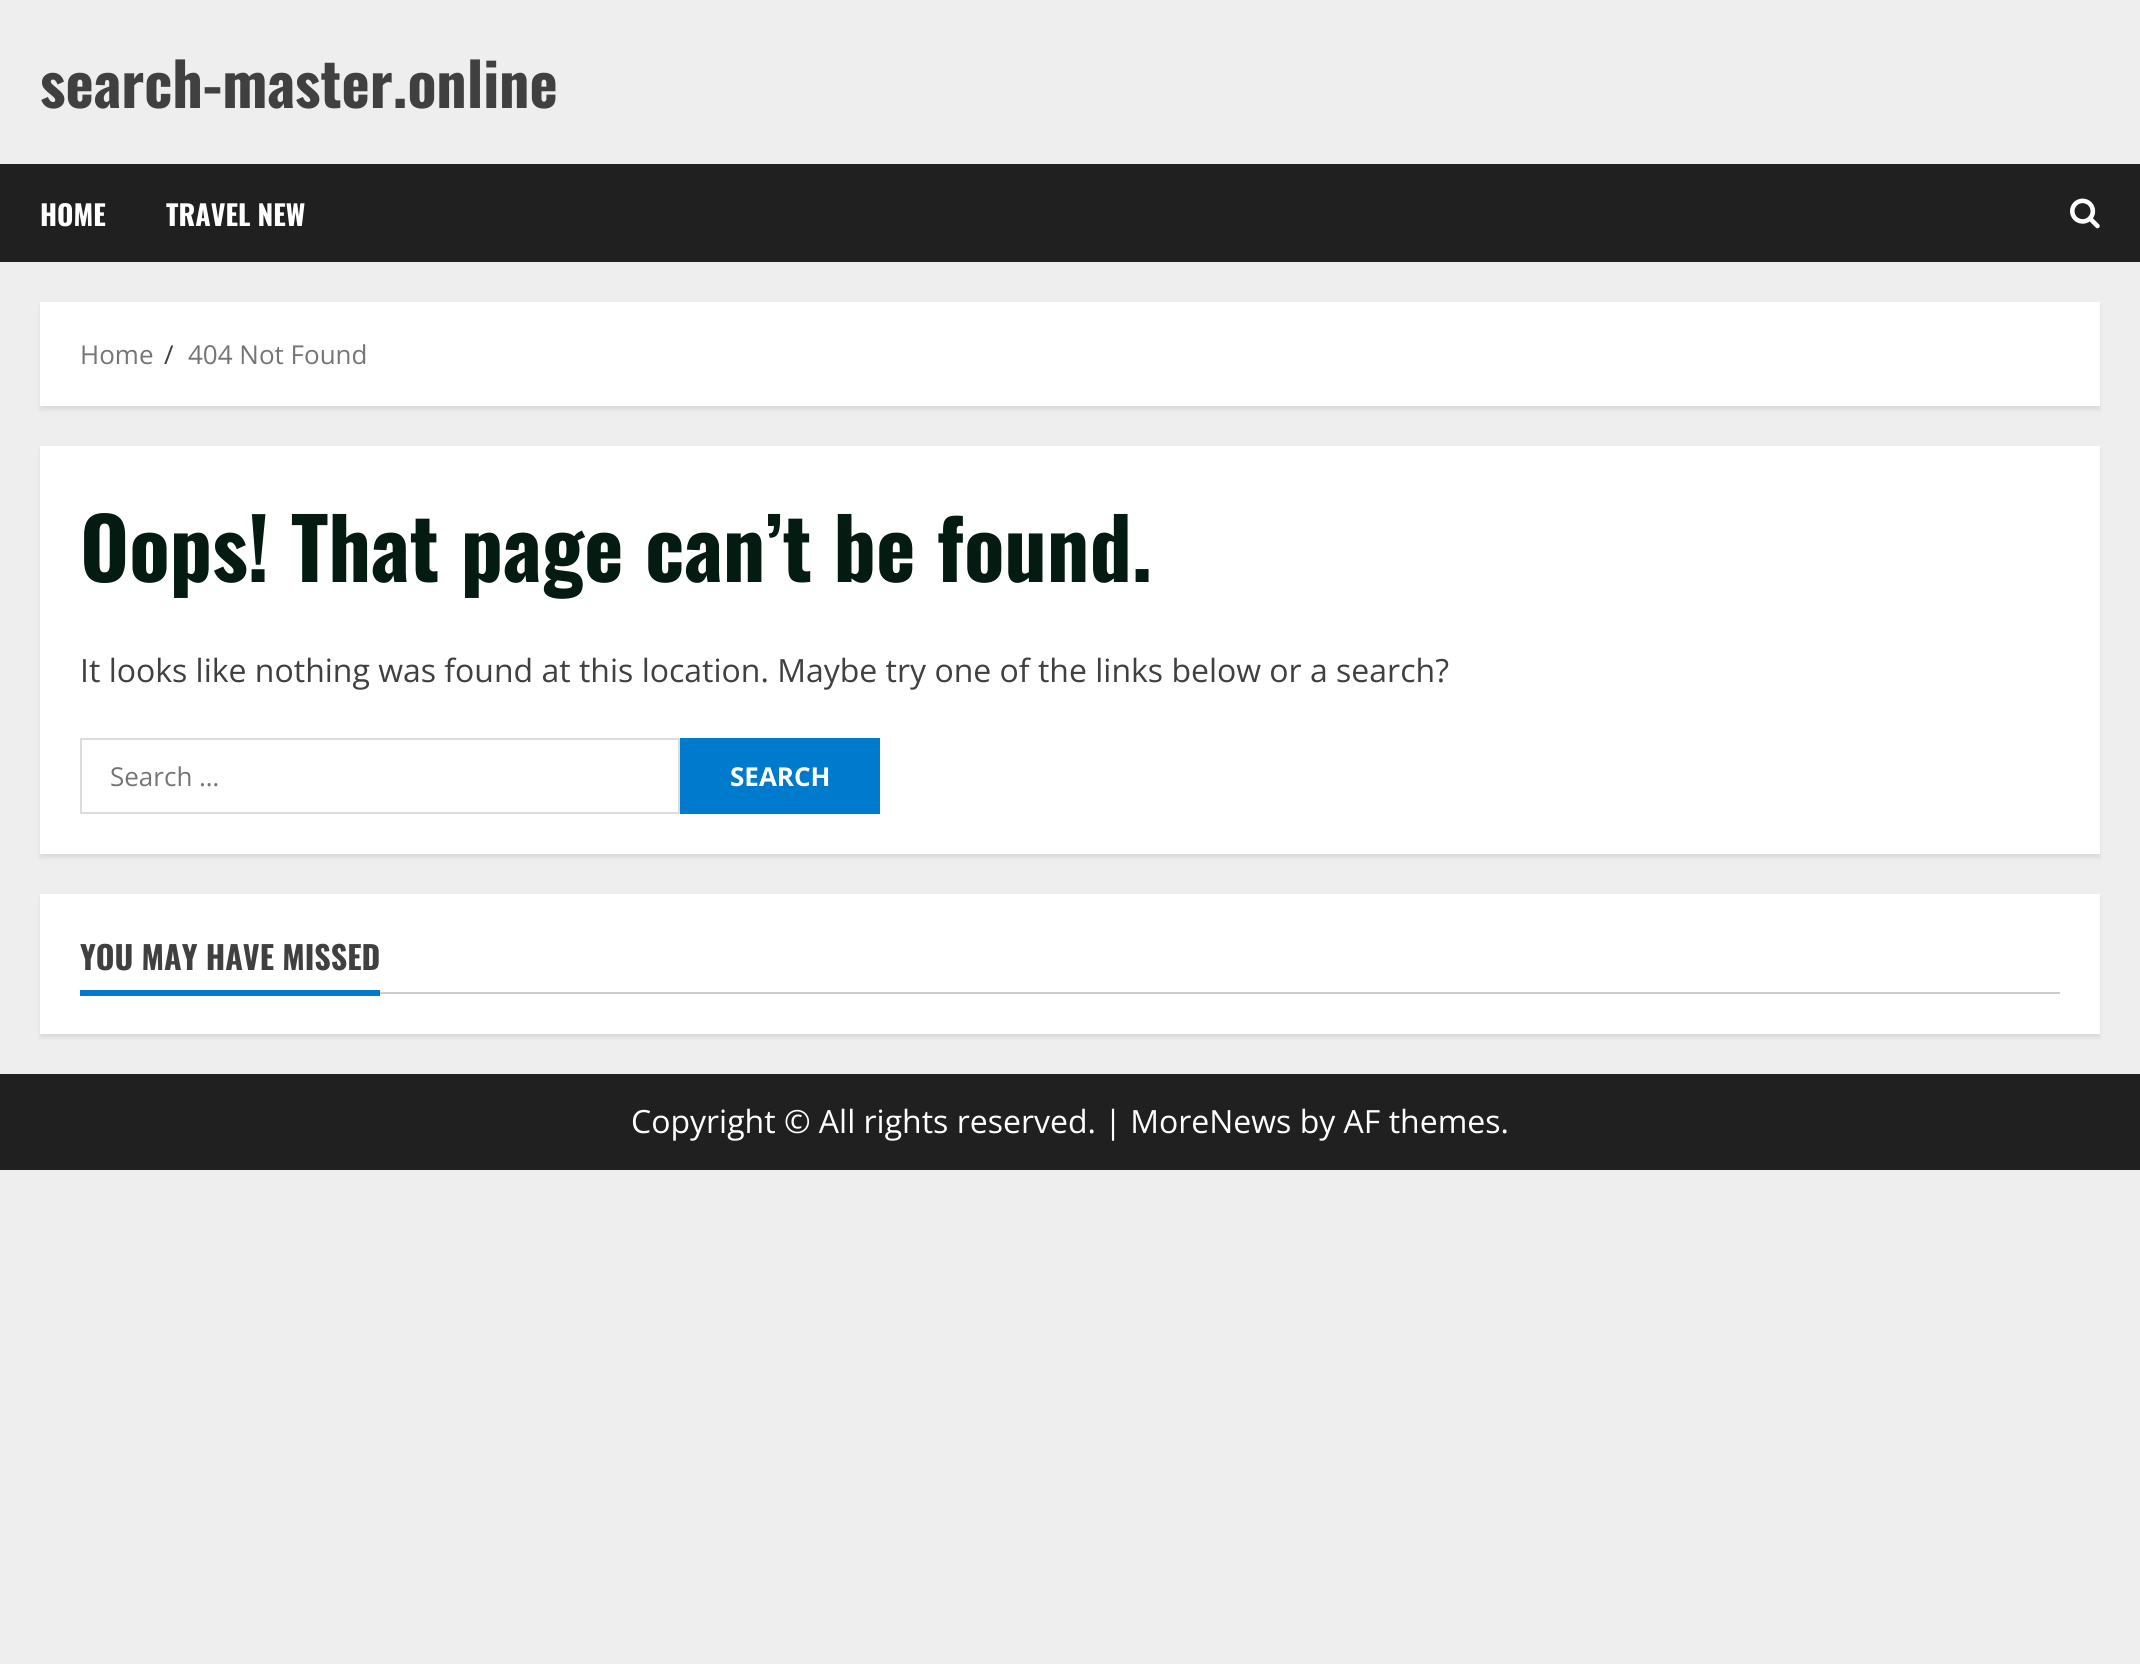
import math
import cairo


def round_path(ctx, x, y, w, h, r):
	ctx.new_sub_path()
	for i, (u, v) in enumerate([(x + w - r, y + h - r), (x + r, y + h - r), (x + r, y + r), (x + w - r, y + r)]):
		ctx.arc(u, v, r, i * math.pi / 2, (i + 1) * math.pi / 2)
	ctx.close_path()

def blur_box(ctx, x, y, w, h, r, blur, alpha):
	ctx.push_group_with_content(cairo.CONTENT_ALPHA)
	ctx.set_operator(cairo.OPERATOR_SOURCE)
	for i in range(15, -16, -2):
		e = blur * i / 6
		if min(w, h) + 2 * e > 0:
			ctx.set_source_rgba(0, 0, 0, alpha * math.erfc((i - 1) / 8.5) / 2)
			round_path(ctx, x - e, y - e, w + 2 * e, h + 2 * e, max(0, min(r + e + blur * .6, min(w, h) / 2 + e)))
			ctx.fill()
	ctx.mask(ctx.pop_group())

def paste(ctx, path, x, y, w, h):
	ctx.save()
	ctx.set_source_surface(cairo.ImageSurface.create_from_png(path), x, y)
	ctx.rectangle(x, y, w, h)
	ctx.fill()
	ctx.restore()

def draw(ctx):
	ctx.set_source_rgb(0.933, 0.933, 0.933)
	ctx.paint()
	ctx.select_font_face('Oswald', cairo.FONT_SLANT_NORMAL, cairo.FONT_WEIGHT_BOLD)
	ctx.set_font_size(60)
	ctx.set_source_rgb(0.251, 0.251, 0.251)
	ctx.move_to(40, 108)
	ctx.show_text('search-master.online')
	ctx.set_source_rgb(0.125, 0.125, 0.125)
	ctx.rectangle(0, 164, 2140, 98)
	ctx.fill()
	ctx.set_font_size(28)
	ctx.set_source_rgb(1, 1, 1)
	ctx.move_to(40, 226)
	ctx.show_text('HOME')
	ctx.move_to(166, 226)
	ctx.show_text('TRAVEL NEW')
	paste(ctx, 'media/1.png', 2070, 198, 30, 31)
	ctx.set_source_rgb(0, 0, 0)
	blur_box(ctx, 40, 306, 2060, 104, 0, 2, 0.08)
	ctx.set_source_rgb(1, 1, 1)
	ctx.rectangle(40, 302, 2060, 104)
	ctx.fill()
	ctx.select_font_face('Open Sans')
	ctx.set_font_size(26)
	ctx.set_source_rgb(0.459, 0.459, 0.459)
	ctx.move_to(80, 364)
	ctx.show_text('Home')
	ctx.set_source_rgb(0.251, 0.251, 0.251)
	ctx.move_to(164, 364)
	ctx.show_text('/')
	ctx.set_source_rgb(0.459, 0.459, 0.459)
	ctx.move_to(188, 364)
	ctx.show_text('404 Not Found')
	ctx.set_source_rgb(0, 0, 0)
	blur_box(ctx, 40, 450, 2060, 408, 0, 2, 0.08)
	ctx.set_source_rgb(1, 1, 1)
	ctx.rectangle(40, 446, 2060, 408)
	ctx.fill()
	ctx.select_font_face('Oswald', cairo.FONT_SLANT_NORMAL, cairo.FONT_WEIGHT_BOLD)
	ctx.set_font_size(84)
	ctx.set_source_rgb(0.012, 0.106, 0.067)
	ctx.move_to(80, 582)
	ctx.show_text('Oops! That page can’t be found.')
	ctx.select_font_face('Open Sans')
	ctx.set_font_size(32)
	ctx.set_source_rgb(0.251, 0.251, 0.251)
	ctx.move_to(80, 682)
	ctx.show_text('It looks like nothing was found at this location. Maybe try one of the links below or a search?')
	ctx.rectangle(81, 739, 598, 74)
	ctx.set_source_rgb(0.863, 0.863, 0.863)
	ctx.stroke()
	ctx.set_font_size(26)
	ctx.set_source_rgb(0.459, 0.459, 0.459)
	ctx.move_to(110, 786)
	ctx.show_text('Search …')
	ctx.set_source_rgb(0, 0.478, 0.8)
	ctx.rectangle(680, 738, 200, 76)
	ctx.fill()
	ctx.select_font_face('Open Sans', cairo.FONT_SLANT_NORMAL, cairo.FONT_WEIGHT_BOLD)
	ctx.set_source_rgb(1, 1, 1)
	ctx.move_to(730, 786)
	ctx.show_text('SEARCH')
	ctx.set_source_rgb(0, 0, 0)
	blur_box(ctx, 40, 898, 2060, 140, 0, 2, 0.08)
	ctx.set_source_rgb(1, 1, 1)
	ctx.rectangle(40, 894, 2060, 140)
	ctx.fill()
	ctx.set_source_rgb(0.8, 0.8, 0.8)
	ctx.rectangle(380, 992, 1680, 2)
	ctx.fill()
	ctx.select_font_face('Oswald', cairo.FONT_SLANT_NORMAL, cairo.FONT_WEIGHT_BOLD)
	ctx.set_font_size(32)
	ctx.set_source_rgb(0.251, 0.251, 0.251)
	ctx.move_to(80, 970)
	ctx.show_text('YOU MAY HAVE MISSED')
	ctx.set_source_rgb(0, 0.478, 0.8)
	ctx.rectangle(80, 990, 300, 6)
	ctx.fill()
	ctx.set_source_rgb(0.125, 0.125, 0.125)
	ctx.rectangle(0, 1074, 2140, 96)
	ctx.fill()
	ctx.select_font_face('Open Sans')
	ctx.set_source_rgb(1, 1, 1)
	ctx.move_to(631, 1133)
	ctx.show_text('Copyright © All rights reserved. | MoreNews by AF themes.')


surface = cairo.ImageSurface(cairo.FORMAT_RGB24, 2140, 1664)
ctx = cairo.Context(surface)
options = cairo.FontOptions()
options.set_hint_metrics(cairo.HINT_METRICS_OFF)
options.set_hint_style(cairo.HINT_STYLE_NONE)
ctx.set_font_options(options)
ctx.set_miter_limit(4)
draw(ctx)
surface.write_to_png('image.png')
